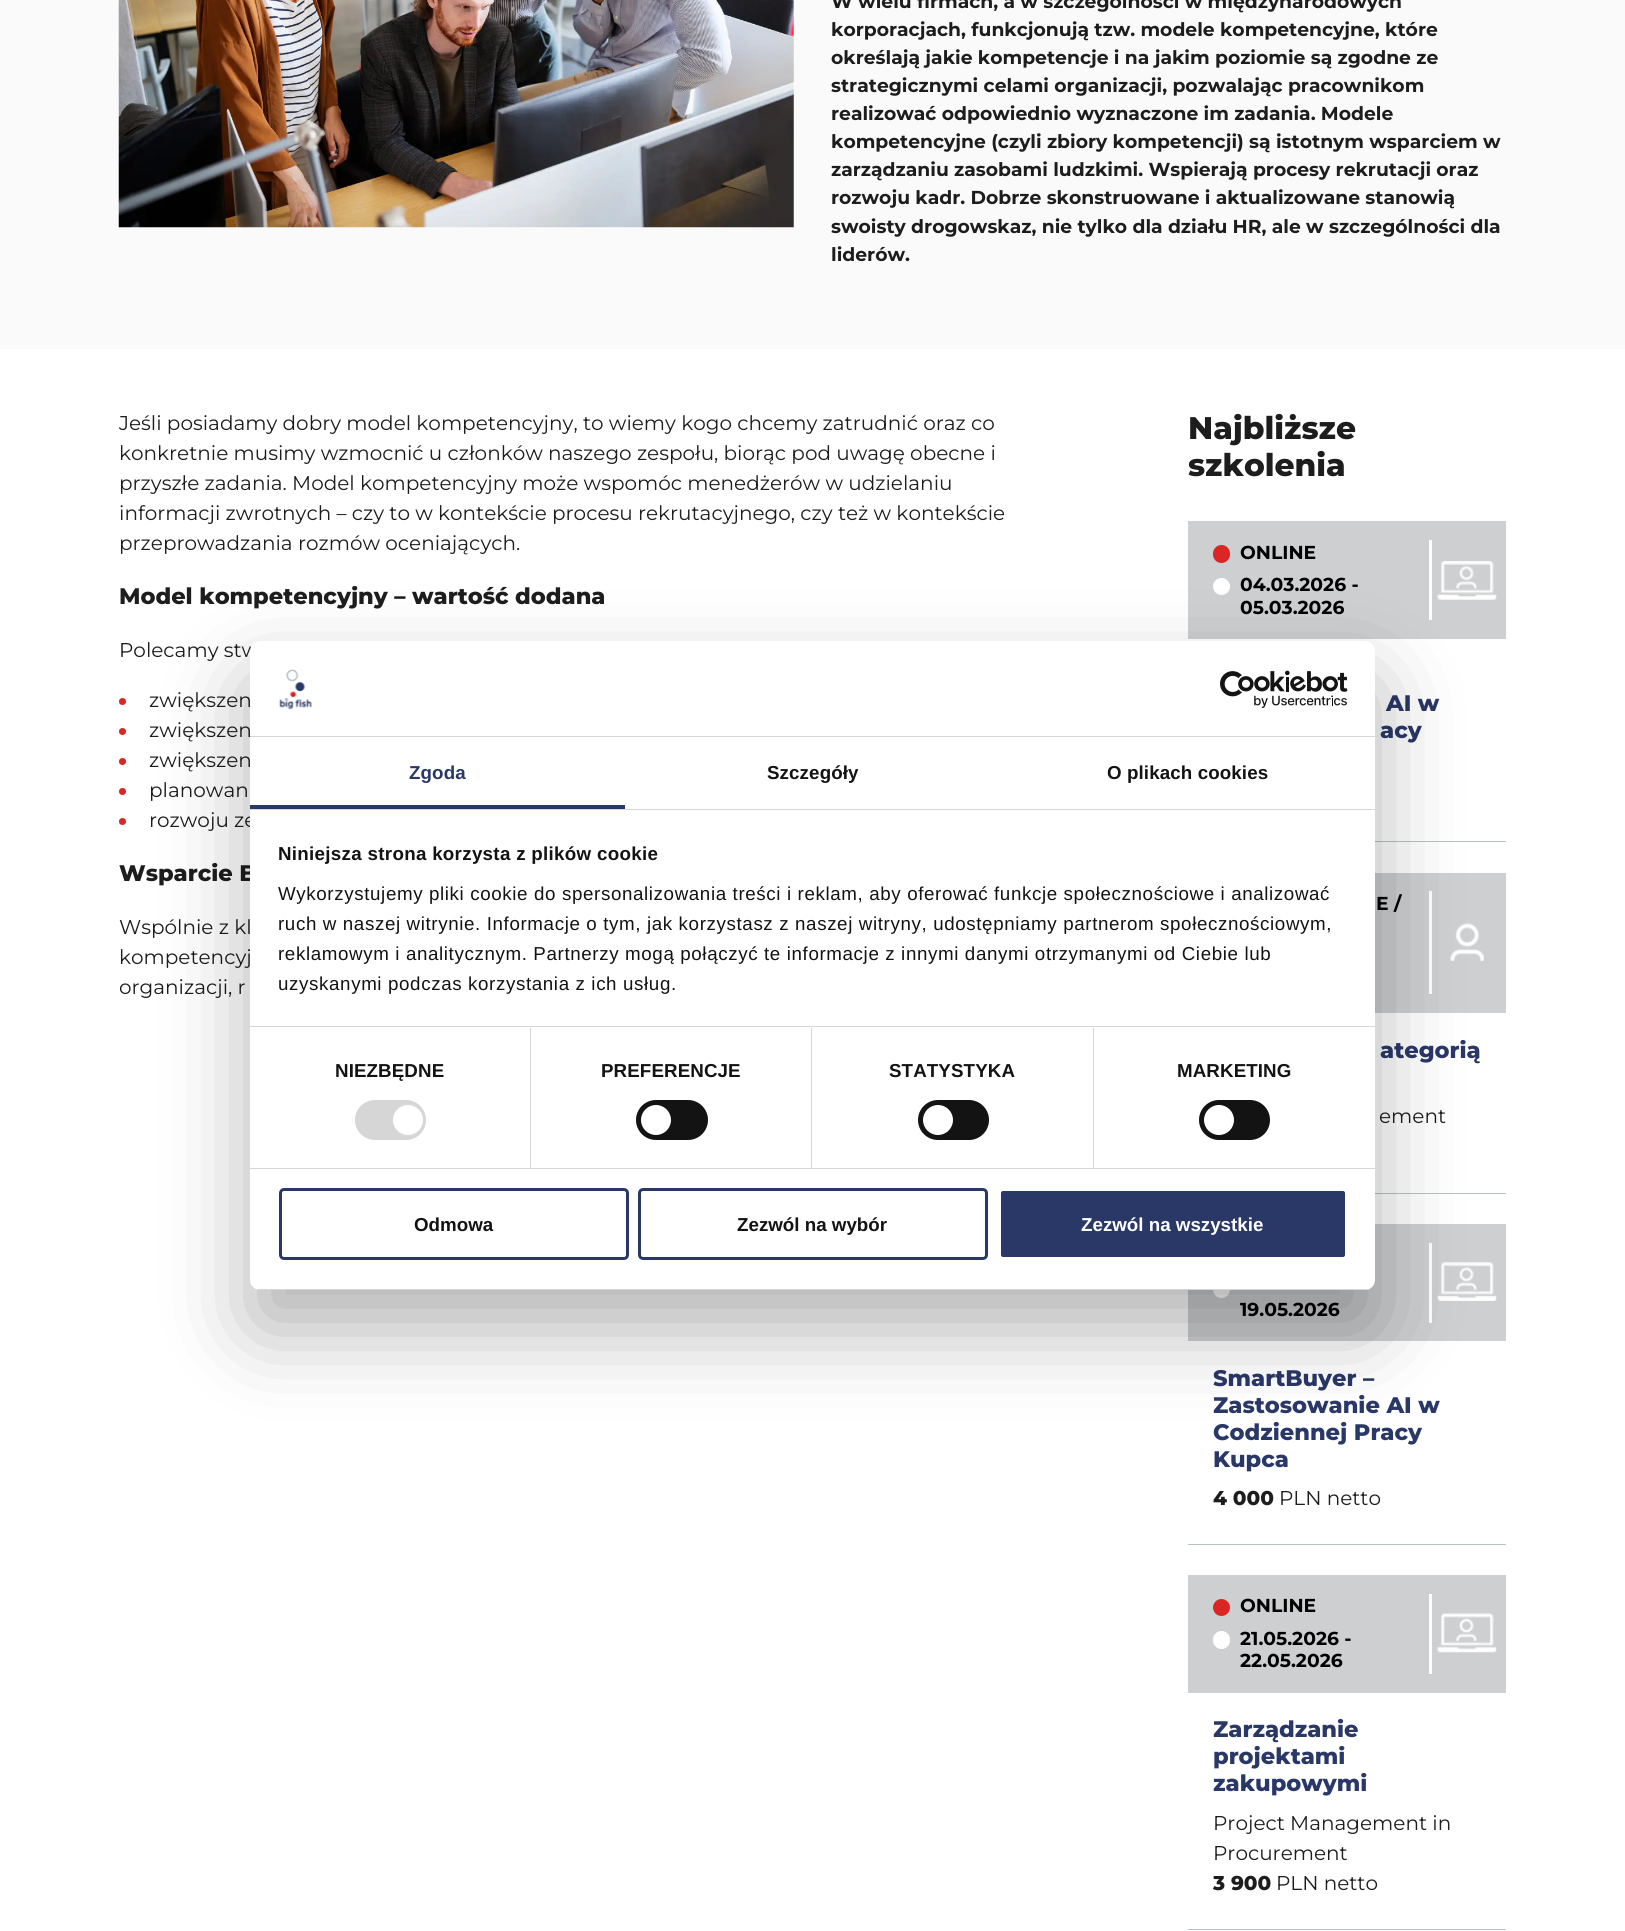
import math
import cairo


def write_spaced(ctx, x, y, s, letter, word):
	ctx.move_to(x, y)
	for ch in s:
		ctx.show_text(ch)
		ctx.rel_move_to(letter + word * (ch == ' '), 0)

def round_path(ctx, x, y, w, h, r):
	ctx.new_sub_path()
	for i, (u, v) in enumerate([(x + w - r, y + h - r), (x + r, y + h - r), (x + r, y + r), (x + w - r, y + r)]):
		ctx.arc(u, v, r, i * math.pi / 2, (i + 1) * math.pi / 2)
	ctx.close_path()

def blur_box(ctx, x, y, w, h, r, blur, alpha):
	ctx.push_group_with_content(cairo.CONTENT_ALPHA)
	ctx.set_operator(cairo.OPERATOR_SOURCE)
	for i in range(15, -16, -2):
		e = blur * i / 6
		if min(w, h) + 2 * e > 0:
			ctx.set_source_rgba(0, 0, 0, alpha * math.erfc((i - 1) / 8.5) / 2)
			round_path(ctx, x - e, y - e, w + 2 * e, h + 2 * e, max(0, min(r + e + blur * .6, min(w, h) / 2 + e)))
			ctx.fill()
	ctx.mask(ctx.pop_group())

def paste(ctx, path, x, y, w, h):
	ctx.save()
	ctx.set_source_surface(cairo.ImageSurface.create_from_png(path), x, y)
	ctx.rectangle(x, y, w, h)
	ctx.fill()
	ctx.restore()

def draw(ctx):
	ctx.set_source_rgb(1, 1, 1)
	ctx.paint()
	ctx.set_source_rgb(0.98, 0.98, 0.98)
	ctx.rectangle(0, 0, 1625, 349)
	ctx.fill()
	paste(ctx, 'media/1.png', 118, 0, 676, 228)
	ctx.select_font_face('Montserrat Thin')
	ctx.set_font_size(18.75)
	ctx.set_source_rgb(0.114, 0.114, 0.114)
	for x, y, s in [
		(831, 8, 'W wielu firmach, a w szczególności w międzynarodowych'),
		(831, 36, 'korporacjach, funkcjonują tzw. modele kompetencyjne, które'),
		(831, 64, 'określają jakie kompetencje i na jakim poziomie są zgodne ze'),
		(831, 92, 'strategicznymi celami organizacji, pozwalając pracownikom'),
		(831, 120, 'realizować odpowiednio wyznaczone im zadania. Modele'),
		(831, 148, 'kompetencyjne (czyli zbiory kompetencji) są istotnym wsparciem w'),
		(831, 176, 'zarządzaniu zasobami ludzkimi. Wspierają procesy rekrutacji oraz'),
		(831, 204, 'rozwoju kadr. Dobrze skonstruowane i aktualizowane stanowią'),
		(831, 233, 'swoisty drogowskaz, nie tylko dla działu HR, ale w szczególności dla'),
		(831, 261, 'liderów.'),
	]:
		ctx.move_to(x, y)
		ctx.show_text(s)
	ctx.select_font_face('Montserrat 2 Thin')
	ctx.set_font_size(20)
	for x, y, s in [
		(119, 430, 'Jeśli posiadamy dobry model kompetencyjny, to wiemy kogo chcemy zatrudnić oraz co'),
		(119, 460, 'konkretnie musimy wzmocnić u członków naszego zespołu, biorąc pod uwagę obecne i'),
		(119, 490, 'przyszłe zadania. Model kompetencyjny może wspomóc menedżerów w udzielaniu'),
		(119, 520, 'informacji zwrotnych – czy to w kontekście procesu rekrutacyjnego, czy też w kontekście'),
		(119, 550, 'przeprowadzania rozmów oceniających.'),
	]:
		ctx.move_to(x, y)
		ctx.show_text(s)
	ctx.select_font_face('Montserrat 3 Thin')
	ctx.set_font_size(22.5)
	ctx.move_to(119, 604)
	ctx.show_text('Model kompetencyjny – wartość dodana')
	ctx.select_font_face('Montserrat 2 Thin')
	ctx.set_font_size(20)
	ctx.move_to(119, 657)
	ctx.show_text('Polecamy stw')
	ctx.set_source_rgb(0.855, 0.149, 0.145)
	ctx.new_path()
	ctx.arc(122.5, 701.5, 3.5, 0, 2 * math.pi)
	ctx.fill()
	ctx.set_source_rgb(0.114, 0.114, 0.114)
	ctx.move_to(149, 707)
	ctx.show_text('zwiększen')
	ctx.set_source_rgb(0.855, 0.149, 0.145)
	ctx.new_path()
	ctx.arc(122.5, 731.5, 3.5, 0, 2 * math.pi)
	ctx.fill()
	ctx.set_source_rgb(0.114, 0.114, 0.114)
	ctx.move_to(149, 737)
	ctx.show_text('zwiększen')
	ctx.set_source_rgb(0.855, 0.149, 0.145)
	ctx.new_path()
	ctx.arc(122.5, 761.5, 3.5, 0, 2 * math.pi)
	ctx.fill()
	ctx.set_source_rgb(0.114, 0.114, 0.114)
	ctx.move_to(149, 767)
	ctx.show_text('zwiększen')
	ctx.set_source_rgb(0.855, 0.149, 0.145)
	ctx.new_path()
	ctx.arc(122.5, 791.5, 3.5, 0, 2 * math.pi)
	ctx.fill()
	ctx.set_source_rgb(0.114, 0.114, 0.114)
	ctx.move_to(149, 797)
	ctx.show_text('planowan')
	ctx.set_source_rgb(0.855, 0.149, 0.145)
	ctx.new_path()
	ctx.arc(122.5, 821.5, 3.5, 0, 2 * math.pi)
	ctx.fill()
	ctx.set_source_rgb(0.114, 0.114, 0.114)
	ctx.move_to(149, 827)
	ctx.show_text('rozwoju ze')
	ctx.select_font_face('Montserrat 3 Thin')
	ctx.set_font_size(22.5)
	ctx.move_to(119, 881)
	ctx.show_text('Wsparcie B')
	ctx.select_font_face('Montserrat 2 Thin')
	ctx.set_font_size(20)
	for x, y, s in [
		(119, 934, 'Wspólnie z kl'),
		(119, 964, 'kompetencyj'),
		(119, 994, 'organizacji, r'),
	]:
		ctx.move_to(x, y)
		ctx.show_text(s)
	ctx.select_font_face('Montserrat 3 Thin')
	ctx.set_font_size(31.25)
	ctx.move_to(1188, 439)
	ctx.show_text('Najbliższe')
	ctx.move_to(1188, 476)
	ctx.show_text('szkolenia')
	ctx.set_source_rgb(0.725, 0.765, 0.765)
	ctx.rectangle(1375, 841, 131, 1)
	ctx.fill()
	ctx.set_source_rgb(0.808, 0.812, 0.82)
	ctx.rectangle(1188, 521, 318, 118)
	ctx.fill()
	ctx.set_source_rgb(0.855, 0.149, 0.145)
	round_path(ctx, 1213, 545, 17, 18, 8.5)
	ctx.fill()
	ctx.select_font_face('Montserrat Thin')
	ctx.set_font_size(18.75)
	ctx.set_source_rgb(0, 0, 0)
	ctx.move_to(1240, 559)
	ctx.show_text('ONLINE')
	ctx.set_source_rgb(1, 1, 1)
	ctx.rectangle(1429, 540, 3, 80)
	ctx.fill()
	ctx.arc(1221.5, 586.5, 8.5, 0, 2 * math.pi)
	ctx.fill()
	ctx.set_source_rgb(0, 0, 0)
	ctx.move_to(1240, 591)
	ctx.show_text('04.03.2026 -')
	ctx.move_to(1240, 614)
	ctx.show_text('05.03.2026')
	paste(ctx, 'media/2.png', 1437, 561, 60, 39)
	ctx.select_font_face('Montserrat 3 Thin')
	ctx.set_font_size(22.5)
	ctx.set_source_rgb(0.165, 0.22, 0.408)
	ctx.move_to(1386, 711)
	ctx.show_text('AI w')
	ctx.move_to(1380, 738)
	ctx.show_text('acy')
	ctx.set_source_rgb(0.725, 0.765, 0.765)
	ctx.rectangle(1375, 1193, 131, 1)
	ctx.fill()
	ctx.set_source_rgb(0.808, 0.812, 0.82)
	ctx.rectangle(1375, 873, 131, 140)
	ctx.fill()
	ctx.select_font_face('Montserrat Thin')
	ctx.set_font_size(18.75)
	ctx.set_source_rgb(0, 0, 0)
	ctx.move_to(1376, 910)
	ctx.show_text('E /')
	ctx.set_source_rgb(1, 1, 1)
	ctx.rectangle(1429, 891, 3, 103)
	ctx.fill()
	paste(ctx, 'media/3.png', 1450, 923, 34, 38)
	ctx.select_font_face('Montserrat 3 Thin')
	ctx.set_font_size(22.5)
	ctx.set_source_rgb(0.165, 0.22, 0.408)
	ctx.move_to(1380, 1058)
	ctx.show_text('ategorią')
	ctx.select_font_face('Montserrat 2 Thin')
	ctx.set_font_size(20)
	ctx.set_source_rgb(0.114, 0.114, 0.114)
	ctx.move_to(1379, 1123)
	ctx.show_text('ement')
	ctx.set_source_rgb(0.725, 0.765, 0.765)
	ctx.rectangle(1188, 1544, 318, 1)
	ctx.fill()
	ctx.set_source_rgb(0.808, 0.812, 0.82)
	ctx.rectangle(1188, 1224, 318, 117)
	ctx.fill()
	ctx.set_source_rgb(1, 1, 1)
	ctx.rectangle(1429, 1243, 3, 80)
	ctx.fill()
	paste(ctx, 'media/4.png', 1437, 1262, 60, 39)
	round_path(ctx, 1213, 1280, 17, 18, 8.5)
	ctx.fill()
	ctx.select_font_face('Montserrat Thin')
	ctx.set_font_size(18.75)
	ctx.set_source_rgb(0, 0, 0)
	ctx.move_to(1240, 1316)
	ctx.show_text('19.05.2026')
	ctx.select_font_face('Montserrat 3 Thin')
	ctx.set_font_size(22.5)
	ctx.set_source_rgb(0.165, 0.22, 0.408)
	for x, y, s in [
		(1213, 1386, 'SmartBuyer –'),
		(1213, 1413, 'Zastosowanie AI w'),
		(1213, 1440, 'Codziennej Pracy'),
		(1213, 1467, 'Kupca'),
	]:
		ctx.move_to(x, y)
		ctx.show_text(s)
	ctx.set_font_size(20)
	ctx.set_source_rgb(0.114, 0.114, 0.114)
	ctx.move_to(1213, 1505)
	ctx.show_text('4 000')
	ctx.select_font_face('Montserrat 2 Thin')
	ctx.move_to(1279, 1505)
	ctx.show_text('PLN netto')
	ctx.set_source_rgb(0.725, 0.765, 0.765)
	ctx.rectangle(1188, 1929, 318, 1)
	ctx.fill()
	ctx.set_source_rgb(0.808, 0.812, 0.82)
	ctx.rectangle(1188, 1575, 318, 118)
	ctx.fill()
	ctx.set_source_rgb(0.855, 0.149, 0.145)
	ctx.arc(1221.5, 1607.5, 8.5, 0, 2 * math.pi)
	ctx.fill()
	ctx.select_font_face('Montserrat Thin')
	ctx.set_font_size(18.75)
	ctx.set_source_rgb(0, 0, 0)
	ctx.move_to(1240, 1612)
	ctx.show_text('ONLINE')
	ctx.set_source_rgb(1, 1, 1)
	ctx.rectangle(1429, 1594, 3, 80)
	ctx.fill()
	round_path(ctx, 1213, 1631, 17, 18, 8.5)
	ctx.fill()
	ctx.set_source_rgb(0, 0, 0)
	ctx.move_to(1240, 1645)
	ctx.show_text('21.05.2026 -')
	ctx.move_to(1240, 1667)
	ctx.show_text('22.05.2026')
	paste(ctx, 'media/5.png', 1437, 1613, 60, 40)
	ctx.select_font_face('Montserrat 3 Thin')
	ctx.set_font_size(22.5)
	ctx.set_source_rgb(0.165, 0.22, 0.408)
	for x, y, s in [
		(1213, 1737, 'Zarządzanie'),
		(1213, 1764, 'projektami'),
		(1213, 1791, 'zakupowymi'),
	]:
		ctx.move_to(x, y)
		ctx.show_text(s)
	ctx.select_font_face('Montserrat 2 Thin')
	ctx.set_font_size(20)
	ctx.set_source_rgb(0.114, 0.114, 0.114)
	ctx.move_to(1213, 1830)
	ctx.show_text('Project Management in')
	ctx.move_to(1213, 1860)
	ctx.show_text('Procurement')
	ctx.select_font_face('Montserrat 3 Thin')
	ctx.move_to(1213, 1890)
	ctx.show_text('3 900')
	ctx.select_font_face('Montserrat 2 Thin')
	ctx.move_to(1276, 1890)
	ctx.show_text('PLN netto')
	ctx.set_source_rgb(0, 0, 0)
	blur_box(ctx, 250, 681, 1125, 649, 10, 42.5, 0.3)
	ctx.set_source_rgb(1, 1, 1)
	round_path(ctx, 250, 641, 1125, 649, 10)
	ctx.fill()
	ctx.set_source_rgb(0.839, 0.839, 0.839)
	ctx.rectangle(250, 736, 1125, 1)
	ctx.fill()
	paste(ctx, 'media/6.png', 279, 669, 33, 41)
	paste(ctx, 'media/7.png', 1220, 670, 128, 38)
	ctx.rectangle(250, 809, 1125, 1)
	ctx.fill()
	ctx.set_source_rgb(0.165, 0.22, 0.408)
	ctx.rectangle(250, 805, 375, 4)
	ctx.fill()
	ctx.select_font_face('Liberation Sans', cairo.FONT_SLANT_NORMAL, cairo.FONT_WEIGHT_BOLD)
	ctx.set_font_size(18.75)
	write_spaced(ctx, 409, 779, 'Zgoda', 0.1, 0)
	ctx.set_source_rgb(0.078, 0.078, 0.078)
	write_spaced(ctx, 767, 779, 'Szczegóły', 0.1, 0)
	write_spaced(ctx, 1107, 779, 'O plikach cookies', 0.1, 0)
	ctx.set_source_rgb(0.839, 0.839, 0.839)
	ctx.rectangle(250, 1026, 1125, 1)
	ctx.fill()
	ctx.set_source_rgb(0.078, 0.078, 0.078)
	write_spaced(ctx, 278, 860, 'Niniejsza strona korzysta z plików cookie', 0.3, 0)
	ctx.select_font_face('Liberation Sans')
	for x, y, s in [
		(278, 900, 'Wykorzystujemy pliki cookie do spersonalizowania treści i reklam, aby oferować funkcje społecznościowe i analizować'),
		(278, 930, 'ruch w naszej witrynie. Informacje o tym, jak korzystasz z naszej witryny, udostępniamy partnerom społecznościowym,'),
		(278, 960, 'reklamowym i analitycznym. Partnerzy mogą połączyć te informacje z innymi danymi otrzymanymi od Ciebie lub'),
		(278, 990, 'uzyskanymi podczas korzystania z ich usług.'),
	]:
		write_spaced(ctx, x, y, s, 0.62, 0)
	ctx.set_source_rgb(0.839, 0.839, 0.839)
	ctx.rectangle(250, 1168, 1125, 1)
	ctx.fill()
	ctx.rectangle(530, 1028, 1, 140)
	ctx.fill()
	ctx.select_font_face('Liberation Sans', cairo.FONT_SLANT_NORMAL, cairo.FONT_WEIGHT_BOLD)
	ctx.set_source_rgb(0.078, 0.078, 0.078)
	write_spaced(ctx, 335, 1077, 'NIEZBĘDNE', 0.1, 0)
	ctx.set_source_rgb(0.839, 0.839, 0.839)
	round_path(ctx, 355, 1100, 71, 40, 20)
	ctx.fill()
	ctx.set_source_rgb(1, 1, 1)
	ctx.arc(408, 1120, 15, 0, 2 * math.pi)
	ctx.fill()
	ctx.set_source_rgb(0.839, 0.839, 0.839)
	ctx.rectangle(811, 1028, 1, 140)
	ctx.fill()
	ctx.set_source_rgb(0.078, 0.078, 0.078)
	write_spaced(ctx, 601, 1077, 'PREFERENCJE', 0.1, 0)
	round_path(ctx, 636, 1100, 72, 40, 20)
	ctx.fill()
	ctx.set_source_rgb(1, 1, 1)
	ctx.arc(656, 1120, 15, 0, 2 * math.pi)
	ctx.fill()
	ctx.set_source_rgb(0.839, 0.839, 0.839)
	ctx.rectangle(1093, 1028, 1, 140)
	ctx.fill()
	ctx.set_source_rgb(0.078, 0.078, 0.078)
	write_spaced(ctx, 889, 1077, 'STATYSTYKA', 0.1, 0)
	round_path(ctx, 918, 1100, 71, 40, 20)
	ctx.fill()
	ctx.set_source_rgb(1, 1, 1)
	ctx.arc(938, 1120, 15, 0, 2 * math.pi)
	ctx.fill()
	ctx.set_source_rgb(0.078, 0.078, 0.078)
	write_spaced(ctx, 1177, 1077, 'MARKETING', 0.1, 0)
	round_path(ctx, 1199, 1100, 71, 40, 20)
	ctx.fill()
	ctx.set_source_rgb(1, 1, 1)
	ctx.arc(1219, 1120, 15, 0, 2 * math.pi)
	ctx.fill()
	ctx.save()
	round_path(ctx, 250, 641, 1125, 649, 10)
	ctx.clip()
	ctx.set_source_rgb(0.839, 0.839, 0.839)
	ctx.rectangle(250, 1289, 1125, 1)
	ctx.fill()
	ctx.restore()
	round_path(ctx, 280.5, 1189.5, 347, 69, 3.5)
	ctx.set_source_rgb(0.165, 0.22, 0.408)
	ctx.set_line_width(3)
	ctx.stroke()
	ctx.set_source_rgb(0.078, 0.078, 0.078)
	ctx.move_to(414, 1231)
	ctx.show_text('Odmowa')
	round_path(ctx, 639.5, 1189.5, 347, 69, 3.5)
	ctx.set_source_rgb(0.165, 0.22, 0.408)
	ctx.stroke()
	ctx.set_source_rgb(0.078, 0.078, 0.078)
	ctx.move_to(737, 1231)
	ctx.show_text('Zezwól na wybór')
	ctx.set_source_rgb(0.165, 0.22, 0.408)
	round_path(ctx, 999.5, 1189.5, 347, 69, 3.5)
	ctx.fill_preserve()
	ctx.set_source_rgb(1, 1, 1)
	ctx.stroke()
	ctx.move_to(1081, 1231)
	ctx.show_text('Zezwól na wszystkie')


surface = cairo.ImageSurface(cairo.FORMAT_RGB24, 1625, 1931)
ctx = cairo.Context(surface)
options = cairo.FontOptions()
options.set_hint_metrics(cairo.HINT_METRICS_OFF)
options.set_hint_style(cairo.HINT_STYLE_NONE)
ctx.set_font_options(options)
ctx.set_miter_limit(4)
draw(ctx)
surface.write_to_png('image.png')
